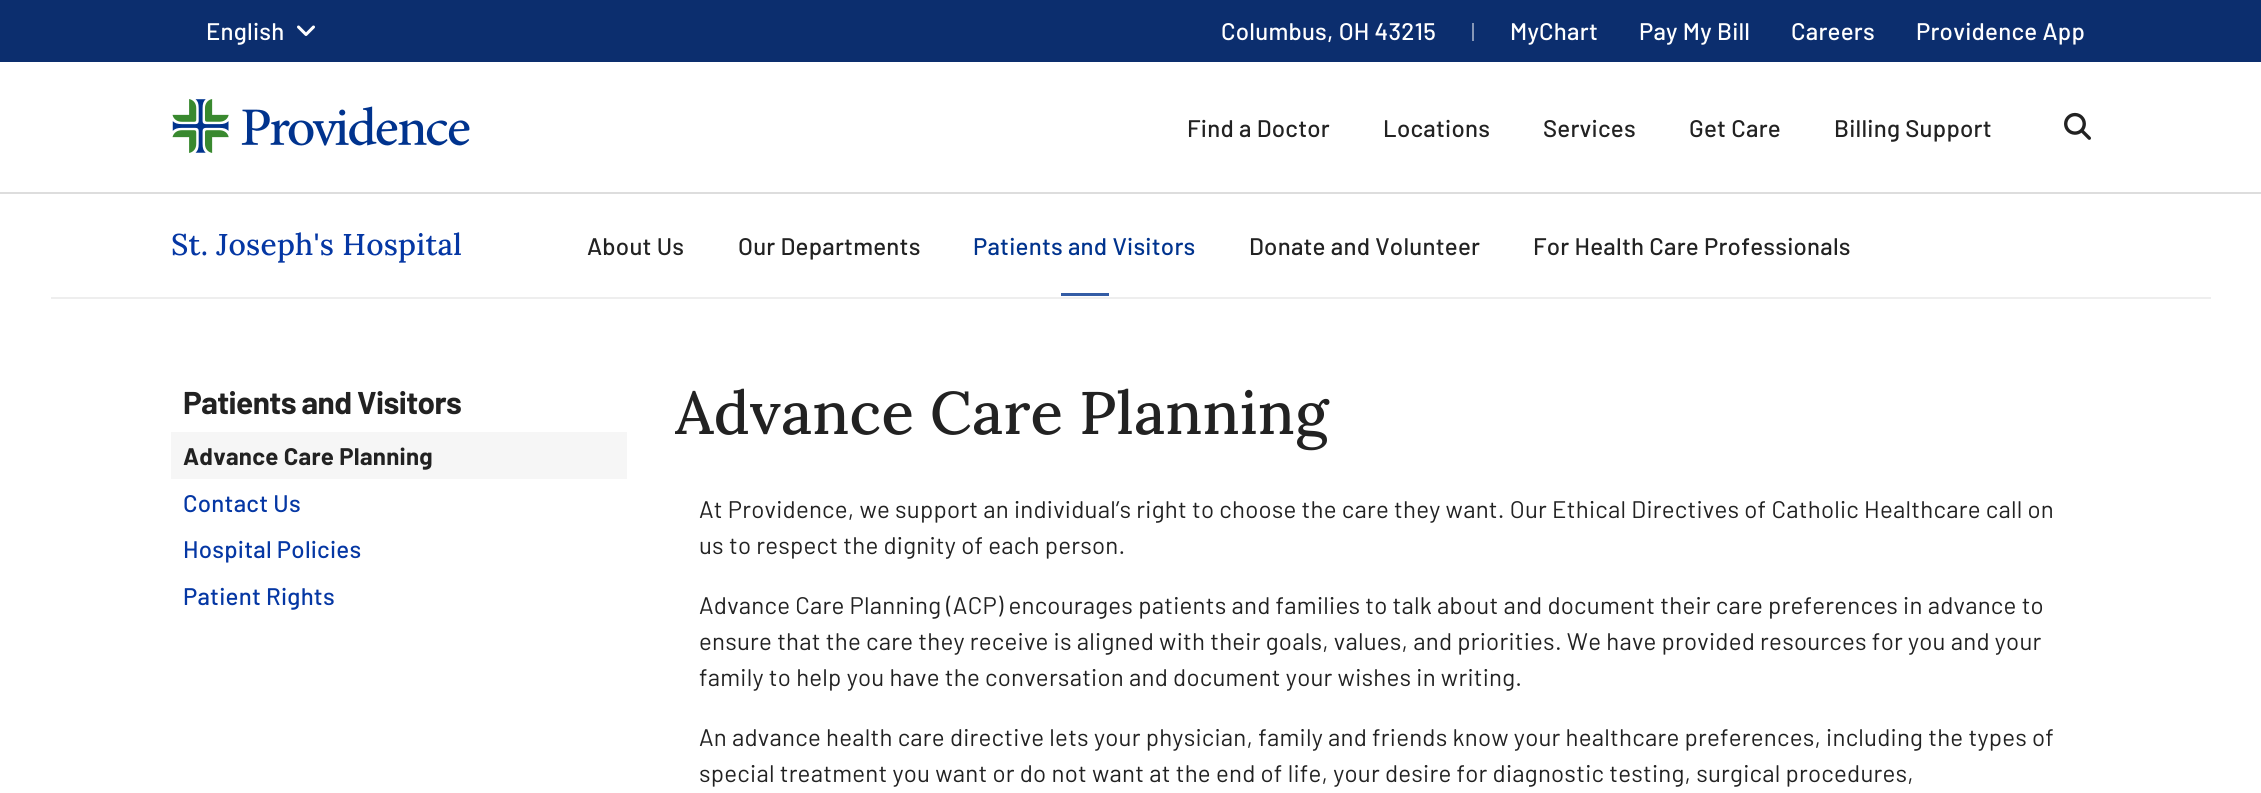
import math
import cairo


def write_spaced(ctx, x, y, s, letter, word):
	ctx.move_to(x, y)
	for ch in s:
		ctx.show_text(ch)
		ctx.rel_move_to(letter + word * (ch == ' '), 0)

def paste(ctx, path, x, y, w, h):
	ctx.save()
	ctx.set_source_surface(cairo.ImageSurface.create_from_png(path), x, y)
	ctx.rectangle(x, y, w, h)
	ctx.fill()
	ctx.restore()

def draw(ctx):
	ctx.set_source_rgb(1, 1, 1)
	ctx.paint()
	ctx.set_source_rgb(0.047, 0.18, 0.431)
	ctx.rectangle(0, 0, 2261, 62)
	ctx.fill()
	ctx.select_font_face('Barlow Medium')
	ctx.set_font_size(24)
	ctx.set_source_rgb(1, 1, 1)
	write_spaced(ctx, 206, 40, 'English', 0.24, 0)
	paste(ctx, 'media/1.png', 297, 25, 18, 11)
	write_spaced(ctx, 1221, 40, 'Columbus, OH 43215', 0.24, 0)
	ctx.set_source_rgb(0.525, 0.592, 0.718)
	ctx.rectangle(1472, 23, 2, 18)
	ctx.fill()
	ctx.set_source_rgb(1, 1, 1)
	for x, y, s in [
		(1510, 40, 'MyChart'),
		(1639, 40, 'Pay My Bill'),
		(1791, 40, 'Careers'),
		(1916, 40, 'Providence App'),
	]:
		write_spaced(ctx, x, y, s, 0.24, 0)
	ctx.set_source_rgb(0.867, 0.867, 0.867)
	ctx.rectangle(0, 192, 2261, 2)
	ctx.fill()
	paste(ctx, 'media/2.png', 172, 99, 298, 54)
	ctx.set_source_rgb(0.133, 0.133, 0.133)
	for x, y, s in [
		(1187, 137, 'Find a Doctor'),
		(1383, 137, 'Locations'),
		(1543, 137, 'Services'),
		(1689, 137, 'Get Care'),
		(1834, 137, 'Billing Support'),
	]:
		write_spaced(ctx, x, y, s, 0.24, 0)
	paste(ctx, 'media/3.png', 2064, 112, 27, 28)
	ctx.set_source_rgb(0.933, 0.933, 0.933)
	ctx.rectangle(51, 297, 2160, 2)
	ctx.fill()
	ctx.select_font_face('Lora Medium')
	ctx.set_font_size(30)
	ctx.set_source_rgb(0.02, 0.216, 0.643)
	write_spaced(ctx, 171, 255, 'St. Joseph\'s Hospital', 0.24, 0)
	ctx.select_font_face('Barlow Medium')
	ctx.set_font_size(24)
	ctx.set_source_rgb(0.133, 0.133, 0.133)
	write_spaced(ctx, 587, 255, 'About Us', 0.24, 0)
	write_spaced(ctx, 738, 255, 'Our Departments', 0.24, 0)
	ctx.set_source_rgb(0, 0.2, 0.557)
	write_spaced(ctx, 973, 255, 'Patients and Visitors', 0.24, 0)
	ctx.set_source_rgb(0.2, 0.361, 0.647)
	ctx.rectangle(1061, 293, 48, 3)
	ctx.fill()
	ctx.set_source_rgb(0.133, 0.133, 0.133)
	write_spaced(ctx, 1249, 255, 'Donate and Volunteer', 0.24, 0)
	write_spaced(ctx, 1533, 255, 'For Health Care Professionals', 0.24, 0)
	ctx.select_font_face('Barlow', cairo.FONT_SLANT_NORMAL, cairo.FONT_WEIGHT_BOLD)
	ctx.set_font_size(31.5)
	write_spaced(ctx, 183, 414, 'Patients and Visitors', -0.6, 0)
	ctx.set_source_rgb(0.961, 0.961, 0.961)
	ctx.rectangle(171, 432, 456, 47)
	ctx.fill()
	ctx.set_font_size(24)
	ctx.set_source_rgb(0.133, 0.133, 0.133)
	write_spaced(ctx, 183, 465, 'Advance Care Planning', 0.24, 0)
	ctx.select_font_face('Barlow Medium')
	ctx.set_source_rgb(0.02, 0.216, 0.643)
	for x, y, s in [
		(183, 512, 'Contact Us'),
		(183, 558, 'Hospital Policies'),
		(183, 605, 'Patient Rights'),
	]:
		write_spaced(ctx, x, y, s, 0.24, 0)
	ctx.save()
	ctx.rectangle(675, 371, 1416, 120)
	ctx.clip()
	ctx.select_font_face('Lora Medium')
	ctx.set_font_size(60)
	ctx.set_source_rgb(0.133, 0.133, 0.133)
	write_spaced(ctx, 675, 434, 'Advance Care Planning', 0.24, 0)
	ctx.restore()
	ctx.select_font_face('Barlow')
	ctx.set_source_rgb(0.133, 0.133, 0.133)
	for x, y, s in [
		(699, 518, 'At Providence, we support an individual’s right to choose the care they want. Our Ethical Directives of Catholic Healthcare call on'),
		(699, 554, 'us to respect the dignity of each person.'),
		(699, 614, 'Advance Care Planning (ACP) encourages patients and families to talk about and document their care preferences in advance to'),
		(699, 650, 'ensure that the care they receive is aligned with their goals, values, and priorities. We have provided resources for you and your'),
		(699, 686, 'family to help you have the conversation and document your wishes in writing.'),
		(699, 746, 'An advance health care directive lets your physician, family and friends know your healthcare preferences, including the types of'),
		(699, 782, 'special treatment you want or do not want at the end of life, your desire for diagnostic testing, surgical procedures,'),
	]:
		write_spaced(ctx, x, y, s, 0.24, 0)


surface = cairo.ImageSurface(cairo.FORMAT_RGB24, 2261, 793)
ctx = cairo.Context(surface)
options = cairo.FontOptions()
options.set_hint_metrics(cairo.HINT_METRICS_OFF)
options.set_hint_style(cairo.HINT_STYLE_NONE)
ctx.set_font_options(options)
ctx.set_miter_limit(4)
draw(ctx)
surface.write_to_png('image.png')
